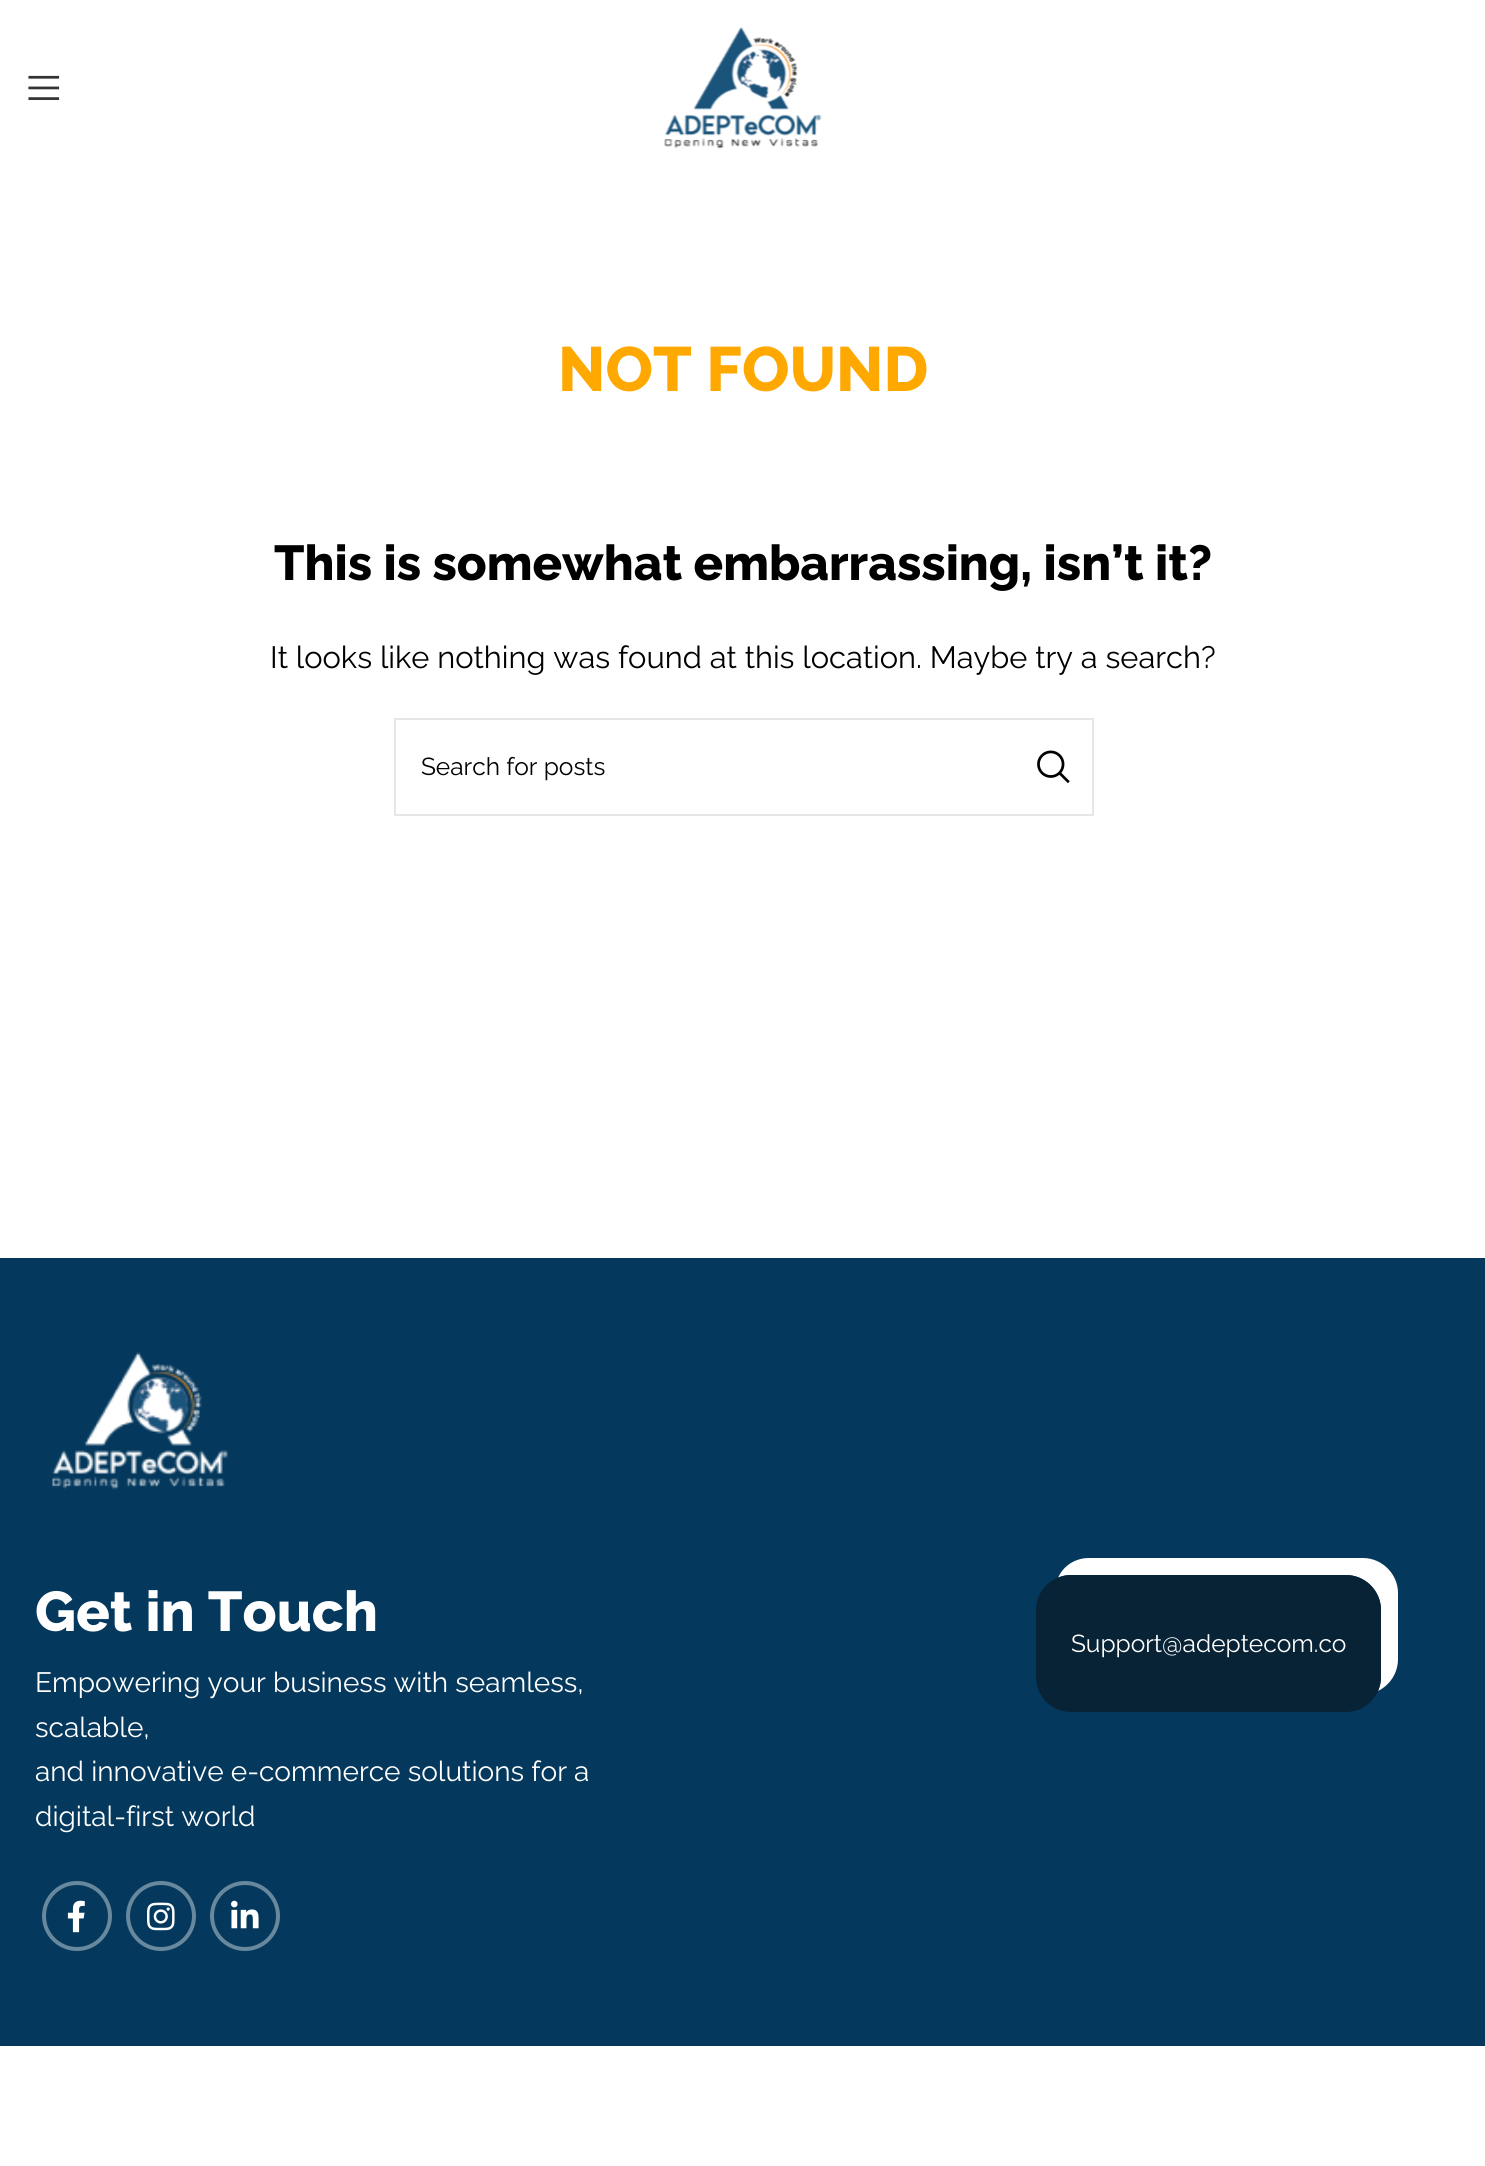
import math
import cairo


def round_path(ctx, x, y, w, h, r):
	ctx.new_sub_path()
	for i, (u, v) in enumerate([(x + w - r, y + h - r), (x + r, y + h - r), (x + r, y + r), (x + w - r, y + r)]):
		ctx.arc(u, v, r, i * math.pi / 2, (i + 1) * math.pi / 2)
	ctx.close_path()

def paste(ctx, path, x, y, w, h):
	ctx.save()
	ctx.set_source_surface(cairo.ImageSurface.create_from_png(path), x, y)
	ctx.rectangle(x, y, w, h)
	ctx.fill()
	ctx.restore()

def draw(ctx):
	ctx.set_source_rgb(1, 1, 1)
	ctx.paint()
	paste(ctx, 'media/1.png', 28, 75, 32, 25)
	paste(ctx, 'media/2.png', 664, 27, 158, 122)
	ctx.select_font_face('Raleway ExtraBold')
	ctx.set_font_size(62.5)
	ctx.set_source_rgb(1, 0.659, 0)
	ctx.move_to(558, 391)
	ctx.show_text('NOT FOUND')
	ctx.set_font_size(49)
	ctx.set_source_rgb(0, 0, 0)
	ctx.move_to(274, 580)
	ctx.show_text('This is somewhat embarrassing, isn’t it?')
	ctx.select_font_face('Raleway')
	ctx.set_font_size(30.8)
	ctx.move_to(270, 668)
	ctx.show_text('It looks like nothing was found at this location. Maybe try a search?')
	ctx.rectangle(395, 719, 698, 96)
	ctx.set_source_rgb(0.902, 0.902, 0.902)
	ctx.stroke()
	ctx.set_font_size(24.5)
	ctx.set_source_rgb(0, 0, 0)
	ctx.move_to(421, 775)
	ctx.show_text('Search for posts')
	paste(ctx, 'media/3.png', 1037, 750, 33, 34)
	ctx.set_source_rgb(0.016, 0.22, 0.361)
	ctx.rectangle(0, 1258, 1485, 788)
	ctx.fill()
	paste(ctx, 'media/4.png', 52, 1352, 176, 138)
	ctx.select_font_face('Raleway ExtraBold')
	ctx.set_font_size(56)
	ctx.set_source_rgb(1, 1, 1)
	ctx.move_to(35, 1631)
	ctx.show_text('Get in Touch')
	ctx.select_font_face('Raleway')
	ctx.set_font_size(28)
	for x, y, s in [
		(35, 1692, 'Empowering your business with seamless,'),
		(35, 1737, 'scalable,'),
		(35, 1781, 'and innovative e-commerce solutions for a'),
		(35, 1826, 'digital-first world'),
	]:
		ctx.move_to(x, y)
		ctx.show_text(s)
	ctx.new_path()
	ctx.arc(77, 1916, 33, 0, 2 * math.pi)
	ctx.set_source_rgb(0.408, 0.533, 0.616)
	ctx.set_line_width(4)
	ctx.stroke()
	paste(ctx, 'media/5.png', 67, 1900, 18, 33)
	ctx.arc(161, 1916, 33, 0, 2 * math.pi)
	ctx.stroke()
	paste(ctx, 'media/6.png', 147, 1902, 28, 29)
	ctx.arc(245, 1916, 33, 0, 2 * math.pi)
	ctx.stroke()
	paste(ctx, 'media/7.png', 231, 1900, 28, 29)
	ctx.set_source_rgb(1, 1, 1)
	ctx.new_path()
	ctx.move_to(1089, 1558)
	ctx.curve_to(1075, 1558, 1063, 1566, 1058, 1578)
	ctx.curve_to(1062, 1576, 1066, 1575, 1071, 1575)
	ctx.line_to(1346, 1575)
	ctx.curve_to(1365, 1575, 1381, 1591, 1381, 1610)
	ctx.line_to(1381, 1676)
	ctx.curve_to(1381, 1682, 1380, 1686, 1378, 1691)
	ctx.curve_to(1390, 1685, 1398, 1673, 1398, 1659)
	ctx.line_to(1398, 1593)
	ctx.curve_to(1398, 1574, 1382, 1558, 1363, 1558)
	ctx.close_path()
	ctx.fill()
	ctx.set_source_rgb(0.031, 0.137, 0.208)
	round_path(ctx, 1036, 1575, 345, 137, 35)
	ctx.fill()
	ctx.set_font_size(24.5)
	ctx.set_source_rgb(1, 1, 1)
	ctx.move_to(1071, 1652)
	ctx.show_text('Support@adeptecom.co')


surface = cairo.ImageSurface(cairo.FORMAT_RGB24, 1485, 2166)
ctx = cairo.Context(surface)
options = cairo.FontOptions()
options.set_hint_metrics(cairo.HINT_METRICS_OFF)
options.set_hint_style(cairo.HINT_STYLE_NONE)
ctx.set_font_options(options)
ctx.set_miter_limit(4)
draw(ctx)
surface.write_to_png('image.png')
